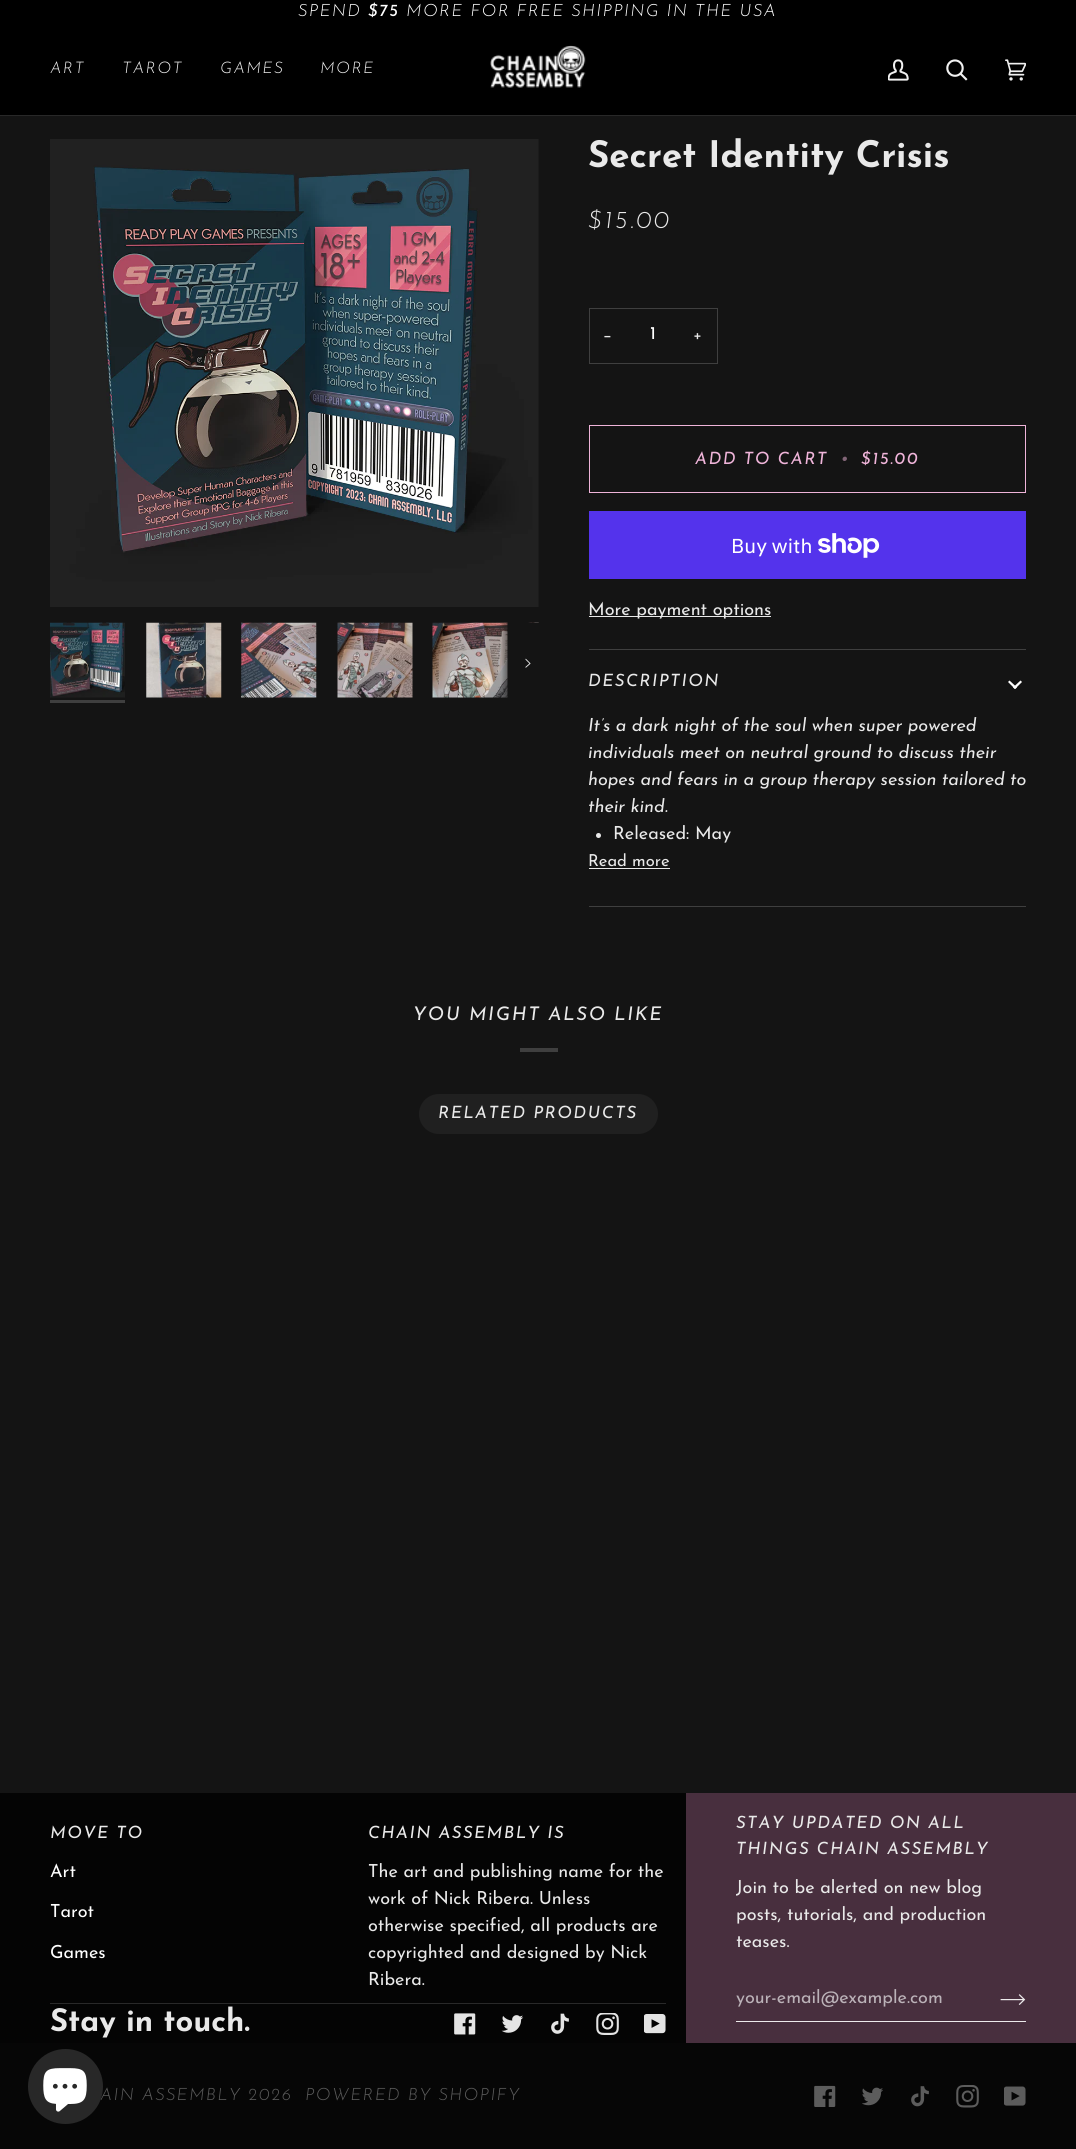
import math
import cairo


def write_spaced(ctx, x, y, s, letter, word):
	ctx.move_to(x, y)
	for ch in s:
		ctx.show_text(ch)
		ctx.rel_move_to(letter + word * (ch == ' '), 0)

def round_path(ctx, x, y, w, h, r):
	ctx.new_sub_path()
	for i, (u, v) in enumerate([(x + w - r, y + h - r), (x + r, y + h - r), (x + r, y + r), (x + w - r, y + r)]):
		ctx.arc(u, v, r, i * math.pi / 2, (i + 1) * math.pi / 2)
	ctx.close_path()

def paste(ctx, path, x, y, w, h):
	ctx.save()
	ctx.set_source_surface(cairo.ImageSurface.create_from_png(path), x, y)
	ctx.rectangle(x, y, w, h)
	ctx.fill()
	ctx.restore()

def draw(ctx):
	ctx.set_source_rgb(0.082, 0.082, 0.082)
	ctx.paint()
	ctx.set_source_rgb(0, 0, 0)
	ctx.rectangle(0, 0, 1076, 115)
	ctx.fill()
	ctx.select_font_face('Josefin Sans Light', cairo.FONT_SLANT_ITALIC)
	ctx.set_font_size(16.95)
	ctx.set_source_rgb(1, 1, 1)
	write_spaced(ctx, 298, 16, 'SPEND', 1.5, 0)
	ctx.select_font_face('Josefin Sans', cairo.FONT_SLANT_ITALIC)
	write_spaced(ctx, 368, 16, '$75', 1.5, 0)
	ctx.select_font_face('Josefin Sans Light', cairo.FONT_SLANT_ITALIC)
	write_spaced(ctx, 406, 16, 'MORE FOR FREE SHIPPING IN THE USA', 1.5, 0)
	ctx.set_source_rgb(0.157, 0.157, 0.157)
	ctx.rectangle(0, 115, 1076, 1)
	ctx.fill()
	ctx.set_font_size(16)
	ctx.set_source_rgb(0.945, 0.945, 0.945)
	for x, y, s in [
		(50, 73, 'ART'),
		(122, 73, 'TAROT'),
		(220, 73, 'GAMES'),
		(320, 73, 'MORE'),
	]:
		write_spaced(ctx, x, y, s, 1.5, 0)
	paste(ctx, 'media/1.png', 490, 45, 96, 43)
	paste(ctx, 'media/2.png', 888, 59, 21, 22)
	paste(ctx, 'media/3.png', 946, 59, 22, 22)
	paste(ctx, 'media/4.png', 1005, 59, 21, 22)
	paste(ctx, 'media/5.png', 50, 139, 489, 468)
	paste(ctx, 'media/6.png', 50, 622, 75, 76)
	ctx.set_source_rgb(0.247, 0.247, 0.247)
	ctx.rectangle(50, 700, 75, 3)
	ctx.fill()
	paste(ctx, 'media/7.png', 146, 622, 76, 76)
	paste(ctx, 'media/8.png', 241, 622, 76, 76)
	paste(ctx, 'media/9.png', 337, 622, 76, 76)
	paste(ctx, 'media/10.png', 432, 622, 76, 76)
	paste(ctx, 'media/11.png', 528, 622, 11, 1)
	gradient = cairo.LinearGradient(501, 660, 539, 660)
	gradient.add_color_stop_rgba(0, 0.082, 0.082, 0.082, 0)
	gradient.add_color_stop_rgba(0.4, 0.082, 0.082, 0.082, 1)
	ctx.set_source(gradient)
	ctx.rectangle(501, 623, 7, 75)
	ctx.fill()
	ctx.save()
	ctx.new_path()
	ctx.move_to(525.5, 669.5)
	ctx.line_to(525.5, 657)
	ctx.line_to(532, 657)
	ctx.line_to(532, 669.5)
	ctx.close_path()
	ctx.clip()
	ctx.new_path()
	ctx.move_to(525.5, 667.5)
	ctx.line_to(530, 663.5)
	ctx.line_to(525.5, 659)
	ctx.set_source_rgb(0.914, 0.914, 0.914)
	ctx.set_line_width(0.9)
	ctx.stroke()
	ctx.restore()
	ctx.select_font_face('Josefin Sans', cairo.FONT_SLANT_NORMAL, cairo.FONT_WEIGHT_BOLD)
	ctx.set_font_size(36.5)
	ctx.set_source_rgb(0.914, 0.914, 0.914)
	ctx.move_to(588, 167)
	ctx.show_text('Secret Identity Crisis')
	ctx.select_font_face('Josefin Sans Light', cairo.FONT_SLANT_ITALIC)
	ctx.set_font_size(24.5)
	write_spaced(ctx, 588, 228, '$15.00', 2.25, 0)
	ctx.rectangle(589.5, 308.5, 128, 55)
	ctx.set_source_rgb(0.247, 0.247, 0.247)
	ctx.set_line_width(1)
	ctx.stroke()
	ctx.select_font_face('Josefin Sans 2')
	ctx.set_font_size(16.5)
	ctx.set_source_rgb(0.914, 0.914, 0.914)
	ctx.move_to(603, 340)
	ctx.show_text('−')
	ctx.select_font_face('Josefin Sans')
	ctx.set_font_size(18)
	ctx.set_source_rgb(1, 1, 1)
	ctx.move_to(650, 339)
	ctx.show_text('1')
	ctx.set_font_size(16.5)
	ctx.set_source_rgb(0.914, 0.914, 0.914)
	ctx.move_to(693, 340)
	ctx.show_text('+')
	ctx.rectangle(589.5, 425.5, 436, 67)
	ctx.set_source_rgb(0.937, 0.706, 0.851)
	ctx.stroke()
	ctx.select_font_face('Josefin Sans', cairo.FONT_SLANT_ITALIC)
	ctx.set_font_size(16.95)
	write_spaced(ctx, 695, 464, 'ADD TO CART', 1.5, 0)
	ctx.set_source_rgb(0.51, 0.396, 0.467)
	write_spaced(ctx, 840, 464, '•', 1.5, 0)
	ctx.set_source_rgb(0.937, 0.706, 0.851)
	write_spaced(ctx, 861, 464, '$15.00', 1.5, 0)
	ctx.set_source_rgb(0.329, 0.2, 0.922)
	ctx.rectangle(589, 511, 437, 68)
	ctx.fill()
	ctx.select_font_face('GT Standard')
	ctx.set_font_size(20)
	ctx.set_source_rgb(1, 1, 1)
	ctx.move_to(731, 553)
	ctx.show_text('Buy with')
	paste(ctx, 'media/12.png', 818, 533, 62, 25)
	ctx.set_source_rgb(0.914, 0.914, 0.914)
	ctx.rectangle(589, 616, 182, 1)
	ctx.fill()
	ctx.select_font_face('Josefin Sans')
	ctx.set_font_size(18)
	ctx.move_to(588, 615)
	ctx.show_text('More payment options')
	ctx.set_source_rgb(0.247, 0.247, 0.247)
	ctx.rectangle(589, 649, 437, 1)
	ctx.fill()
	ctx.rectangle(589, 906, 437, 1)
	ctx.fill()
	ctx.select_font_face('Josefin Sans', cairo.FONT_SLANT_ITALIC)
	ctx.set_font_size(16.95)
	ctx.set_source_rgb(0.914, 0.914, 0.914)
	write_spaced(ctx, 588, 686, 'DESCRIPTION', 1.5, 0)
	ctx.set_source_rgb(1, 1, 1)
	ctx.new_path()
	ctx.move_to(1013, 687.5)
	ctx.line_to(1020.5, 680.5)
	ctx.line_to(1022, 682)
	ctx.line_to(1015, 689)
	ctx.close_path()
	ctx.fill()
	ctx.new_path()
	ctx.move_to(1008, 682)
	ctx.line_to(1009.5, 680.5)
	ctx.line_to(1017, 687.5)
	ctx.line_to(1015, 689)
	ctx.close_path()
	ctx.fill()
	ctx.set_font_size(18)
	ctx.set_source_rgb(0.914, 0.914, 0.914)
	for x, y, s in [
		(588, 731, 'It’s a dark night of the soul when super powered'),
		(588, 758, 'individuals meet on neutral ground to discuss their'),
		(588, 785, 'hopes and fears in a group therapy session tailored to'),
		(588, 812, 'their kind.'),
	]:
		ctx.move_to(x, y)
		ctx.show_text(s)
	ctx.new_path()
	ctx.arc(598.5, 835.5, 2.5, 0, 2 * math.pi)
	ctx.fill()
	ctx.select_font_face('Josefin Sans')
	ctx.move_to(613, 839)
	ctx.show_text('Released: May')
	ctx.set_font_size(16.5)
	ctx.move_to(588, 866)
	ctx.show_text('Read more')
	ctx.rectangle(589, 868, 81, 1)
	ctx.fill()
	ctx.select_font_face('Josefin Sans', cairo.FONT_SLANT_ITALIC)
	ctx.set_font_size(18.8)
	write_spaced(ctx, 413, 1020, 'YOU MIGHT ALSO LIKE', 1.75, 0)
	ctx.set_source_rgb(0.247, 0.247, 0.247)
	ctx.rectangle(520, 1048, 38, 4)
	ctx.fill()
	ctx.set_source_rgb(0.125, 0.125, 0.125)
	round_path(ctx, 419, 1094, 239, 40, 20)
	ctx.fill()
	ctx.set_font_size(16.95)
	ctx.set_source_rgb(0.914, 0.914, 0.914)
	write_spaced(ctx, 438, 1118, 'RELATED PRODUCTS', 1.5, 0)
	ctx.set_source_rgb(0.016, 0.016, 0.016)
	ctx.rectangle(0, 1793, 686, 250)
	ctx.fill()
	ctx.set_source_rgb(0.914, 0.914, 0.914)
	write_spaced(ctx, 50, 1838, 'MOVE TO', 1.5, 0)
	ctx.select_font_face('Josefin Sans')
	ctx.set_font_size(18)
	ctx.set_source_rgb(1, 1, 1)
	for x, y, s in [
		(50, 1877, 'Art'),
		(50, 1917, 'Tarot'),
		(50, 1958, 'Games'),
	]:
		ctx.move_to(x, y)
		ctx.show_text(s)
	ctx.select_font_face('Josefin Sans', cairo.FONT_SLANT_ITALIC)
	ctx.set_font_size(16.95)
	ctx.set_source_rgb(0.914, 0.914, 0.914)
	write_spaced(ctx, 368, 1838, 'CHAIN ASSEMBLY IS', 1.5, 0)
	ctx.select_font_face('Josefin Sans')
	ctx.set_font_size(18)
	for x, y, s in [
		(368, 1877, 'The art and publishing name for the'),
		(368, 1904, 'work of Nick Ribera. Unless'),
		(368, 1931, 'otherwise specified, all products are'),
		(368, 1958, 'copyrighted and designed by Nick'),
		(368, 1985, 'Ribera.'),
	]:
		ctx.move_to(x, y)
		ctx.show_text(s)
	ctx.set_source_rgb(0.161, 0.161, 0.161)
	ctx.rectangle(50, 2003, 616, 1)
	ctx.fill()
	ctx.select_font_face('Josefin Sans', cairo.FONT_SLANT_NORMAL, cairo.FONT_WEIGHT_BOLD)
	ctx.set_font_size(31)
	ctx.set_source_rgb(0.914, 0.914, 0.914)
	ctx.move_to(50, 2031)
	ctx.show_text('Stay in touch.')
	paste(ctx, 'media/13.png', 454, 2013, 22, 22)
	paste(ctx, 'media/14.png', 501, 2015, 23, 18)
	paste(ctx, 'media/15.png', 551, 2013, 18, 21)
	paste(ctx, 'media/16.png', 596, 2013, 23, 22)
	paste(ctx, 'media/17.png', 644, 2014, 22, 20)
	ctx.set_source_rgb(0.282, 0.184, 0.243)
	ctx.rectangle(686, 1793, 390, 250)
	ctx.fill()
	ctx.select_font_face('Josefin Sans', cairo.FONT_SLANT_ITALIC)
	ctx.set_font_size(16.95)
	ctx.set_source_rgb(0.914, 0.914, 0.914)
	write_spaced(ctx, 736, 1828, 'STAY UPDATED ON ALL', 1.5, 0)
	write_spaced(ctx, 736, 1854, 'THINGS CHAIN ASSEMBLY', 1.5, 0)
	ctx.select_font_face('Josefin Sans')
	ctx.set_font_size(18)
	for x, y, s in [
		(736, 1893, 'Join to be alerted on new blog'),
		(736, 1920, 'posts, tutorials, and production'),
		(736, 1947, 'teases.'),
	]:
		ctx.move_to(x, y)
		ctx.show_text(s)
	ctx.set_source_rgb(0.929, 0.918, 0.925)
	ctx.rectangle(736, 2021, 290, 1)
	ctx.fill()
	ctx.set_source_rgb(0.733, 0.698, 0.722)
	ctx.move_to(736, 2003)
	ctx.show_text('your-email@example.com')
	paste(ctx, 'media/18.png', 1000, 1994, 26, 11)
	ctx.set_source_rgb(0.024, 0.024, 0.024)
	ctx.rectangle(0, 2043, 1076, 106)
	ctx.fill()
	ctx.select_font_face('Josefin Sans Light', cairo.FONT_SLANT_ITALIC)
	ctx.set_font_size(16.95)
	ctx.set_source_rgb(0.361, 0.361, 0.361)
	write_spaced(ctx, 100, 2100, 'AIN ASSEMBLY', 1.5, 0)
	ctx.set_source_rgb(0.157, 0.157, 0.157)
	ctx.new_path()
	ctx.arc(65.5, 2086.5, 37.5, 0, 2 * math.pi)
	ctx.fill()
	paste(ctx, 'media/19.png', 43, 2068, 44, 44)
	ctx.set_source_rgb(0.361, 0.361, 0.361)
	write_spaced(ctx, 248, 2100, '2026', 1.5, 0)
	write_spaced(ctx, 305, 2100, 'POWERED BY SHOPIFY', 1.5, 0)
	paste(ctx, 'media/20.png', 814, 2085, 22, 22)
	paste(ctx, 'media/21.png', 862, 2087, 21, 19)
	paste(ctx, 'media/22.png', 911, 2086, 18, 21)
	paste(ctx, 'media/23.png', 956, 2085, 23, 23)
	paste(ctx, 'media/24.png', 1004, 2086, 22, 20)


surface = cairo.ImageSurface(cairo.FORMAT_RGB24, 1076, 2149)
ctx = cairo.Context(surface)
options = cairo.FontOptions()
options.set_hint_metrics(cairo.HINT_METRICS_OFF)
options.set_hint_style(cairo.HINT_STYLE_NONE)
ctx.set_font_options(options)
ctx.set_miter_limit(4)
draw(ctx)
surface.write_to_png('image.png')
